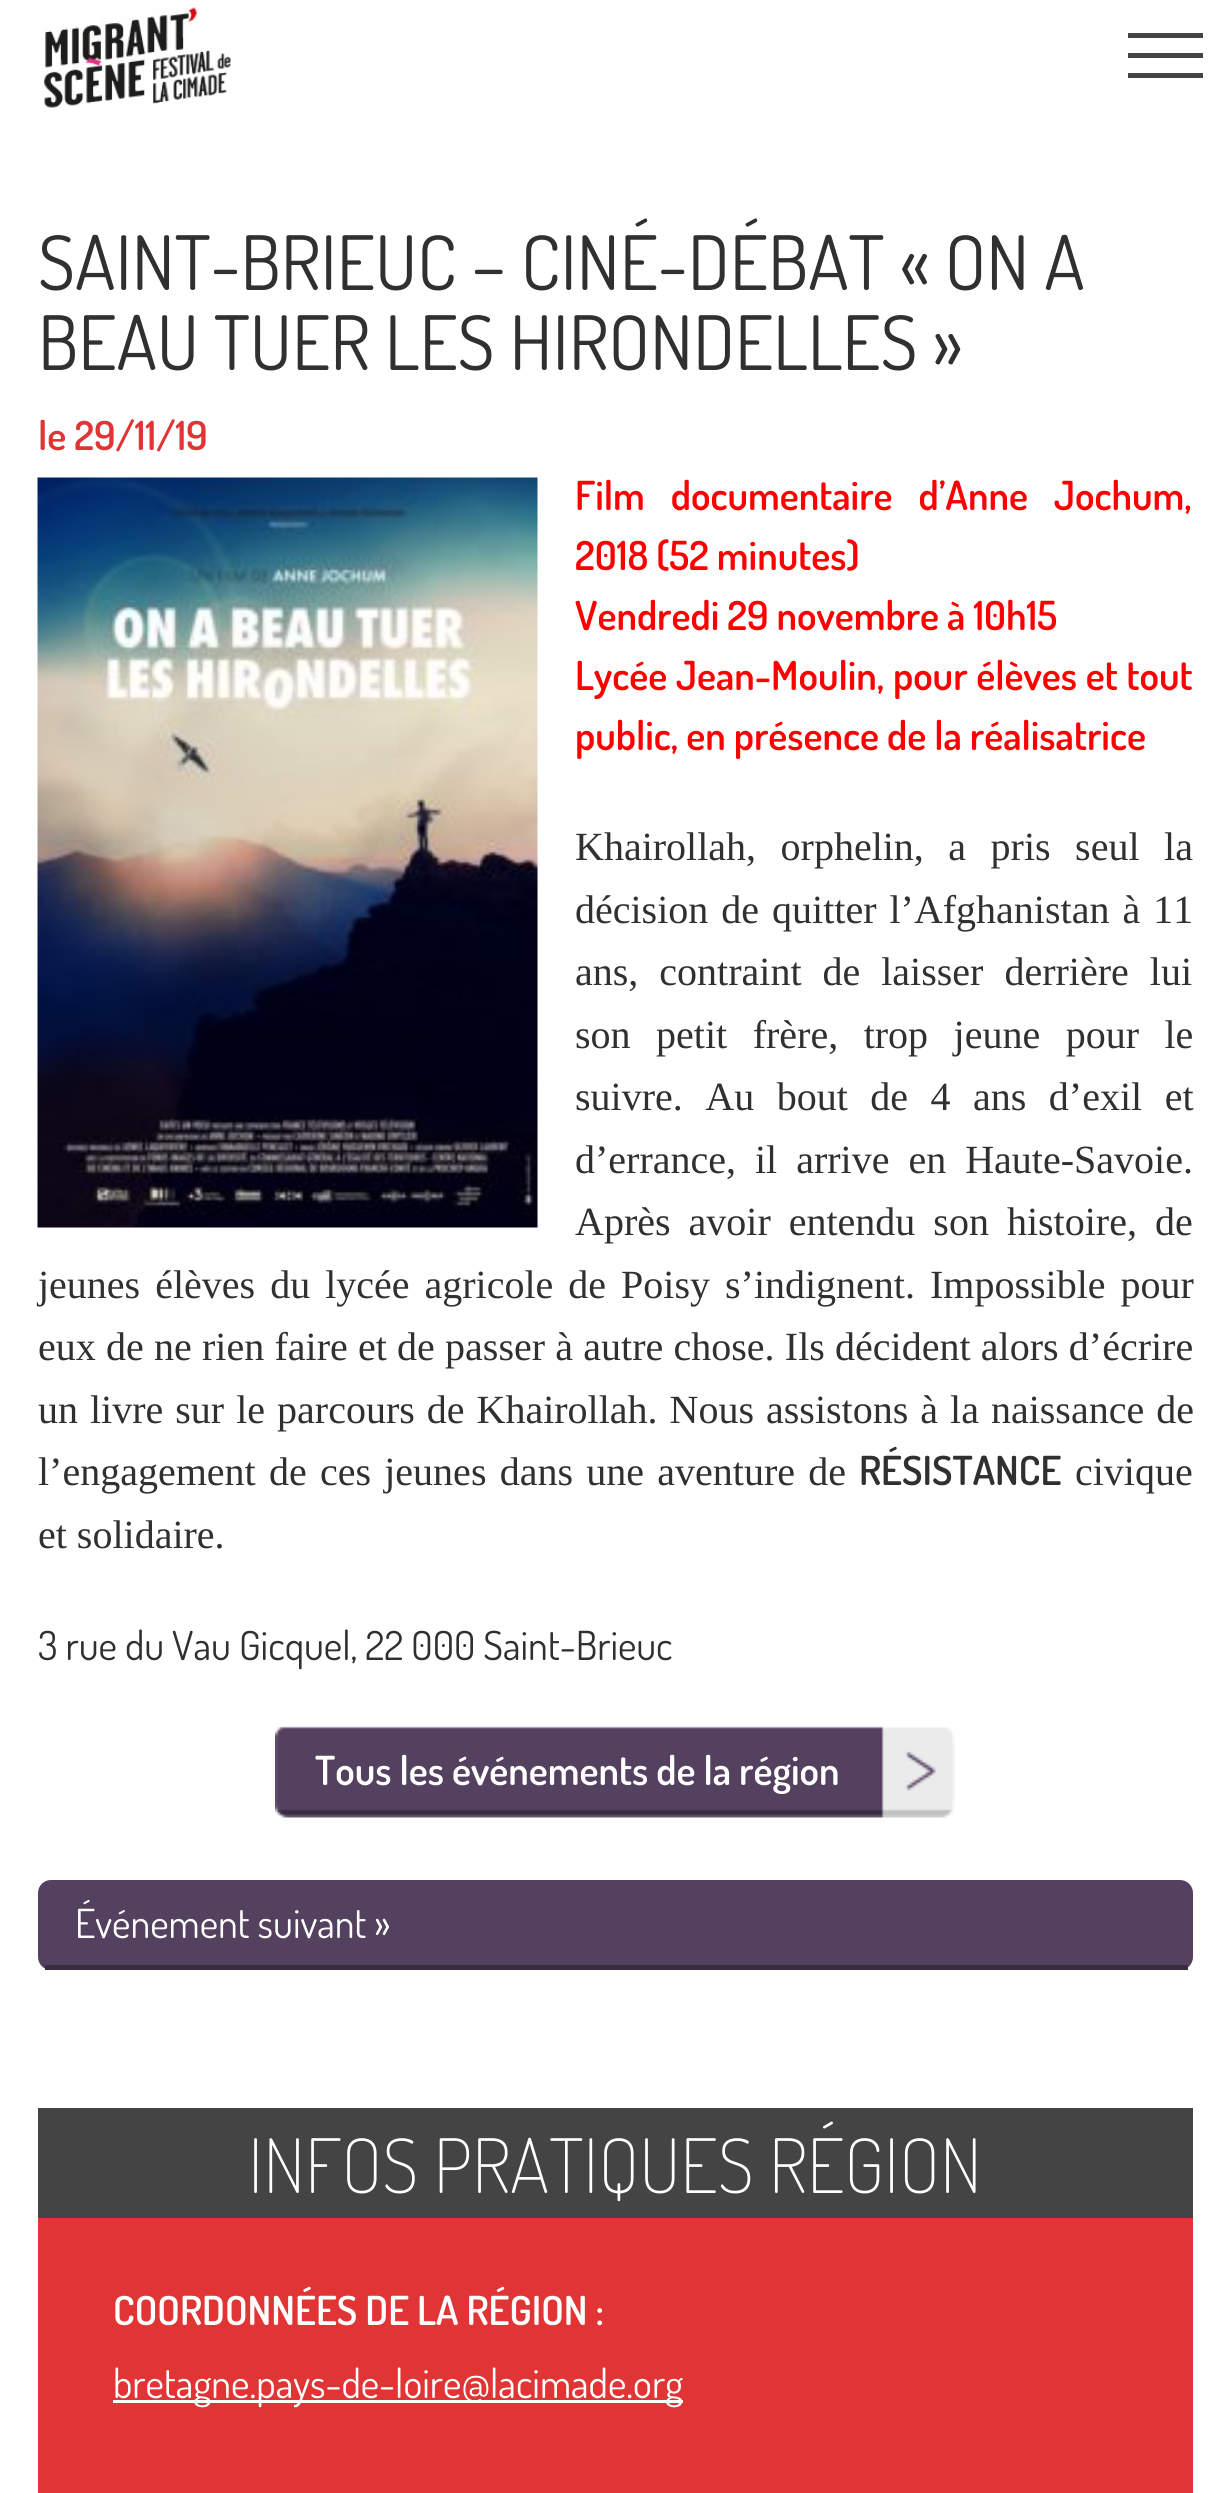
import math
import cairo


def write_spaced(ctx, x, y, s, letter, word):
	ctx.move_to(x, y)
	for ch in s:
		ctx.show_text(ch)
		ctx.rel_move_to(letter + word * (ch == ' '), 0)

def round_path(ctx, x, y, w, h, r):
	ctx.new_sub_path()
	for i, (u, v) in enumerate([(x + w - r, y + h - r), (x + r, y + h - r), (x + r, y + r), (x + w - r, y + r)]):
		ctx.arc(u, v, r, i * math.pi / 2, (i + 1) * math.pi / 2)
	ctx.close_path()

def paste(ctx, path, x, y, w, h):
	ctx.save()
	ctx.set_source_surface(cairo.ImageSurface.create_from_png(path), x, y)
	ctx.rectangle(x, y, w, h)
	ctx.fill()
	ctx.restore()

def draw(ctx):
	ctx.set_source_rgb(1, 1, 1)
	ctx.paint()
	paste(ctx, 'media/1.png', 42, 7, 189, 101)
	ctx.set_source_rgb(0.267, 0.267, 0.267)
	ctx.rectangle(1128, 53, 75, 5)
	ctx.rectangle(1128, 33, 75, 5)
	ctx.rectangle(1128, 73, 75, 5)
	ctx.fill()
	ctx.select_font_face('Dosis')
	ctx.set_font_size(75)
	ctx.set_source_rgb(0.188, 0.188, 0.188)
	ctx.move_to(38, 290)
	ctx.show_text('SAINT-BRIEUC – CINÉ-DÉBAT « ON A')
	ctx.move_to(38, 370)
	ctx.show_text('BEAU TUER LES HIRONDELLES »')
	ctx.select_font_face('Dosis SemiBold')
	ctx.set_font_size(40)
	ctx.set_source_rgb(0.882, 0.204, 0.204)
	ctx.move_to(38, 450)
	ctx.show_text('le 29/11/19')
	paste(ctx, 'media/2.png', 37, 477, 501, 751)
	ctx.set_source_rgb(1, 0, 0)
	write_spaced(ctx, 575, 510, 'Film documentaire d’Anne Jochum,', 0, 18)
	ctx.move_to(575, 570)
	ctx.show_text('2018 (52 minutes)')
	ctx.move_to(575, 630)
	ctx.show_text('Vendredi 29 novembre à 10h15')
	write_spaced(ctx, 575, 690, 'Lycée Jean-Moulin, pour élèves et tout', 0, 0.75)
	ctx.move_to(575, 750)
	ctx.show_text('public, en présence de la réalisatrice')
	ctx.select_font_face('Liberation Serif')
	ctx.set_source_rgb(0.188, 0.188, 0.188)
	write_spaced(ctx, 575, 860, 'Khairollah, orphelin, a pris seul la', 0, 14.5)
	write_spaced(ctx, 575, 923, 'décision de quitter l’Afghanistan à 11', 0, 3)
	write_spaced(ctx, 575, 985, 'ans, contraint de laisser derrière lui', 0, 11)
	write_spaced(ctx, 575, 1048, 'son petit frère, trop jeune pour le', 0, 15.5)
	write_spaced(ctx, 575, 1110, 'suivre. Au bout de 4 ans d’exil et', 0, 12.5)
	write_spaced(ctx, 575, 1173, 'd’errance, il arrive en Haute-Savoie.', 0, 9)
	write_spaced(ctx, 575, 1235, 'Après avoir entendu son histoire, de', 0, 8)
	write_spaced(ctx, 38, 1298, 'jeunes élèves du lycée agricole de Poisy s’indignent. Impossible pour', 0, 5)
	write_spaced(ctx, 38, 1360, 'eux de ne rien faire et de passer à autre chose. Ils décident alors d’écrire', 0, 0.25)
	write_spaced(ctx, 38, 1423, 'un livre sur le parcours de Khairollah. Nous assistons à la naissance de', 0, 2)
	write_spaced(ctx, 38, 1485, 'l’engagement de ces jeunes dans une aventure de', 0, 3.25)
	ctx.select_font_face('Dosis SemiBold')
	ctx.move_to(859, 1485)
	ctx.show_text('RÉSISTANCE')
	ctx.select_font_face('Liberation Serif')
	ctx.move_to(1075, 1485)
	ctx.show_text('civique')
	ctx.move_to(38, 1548)
	ctx.show_text('et solidaire.')
	ctx.select_font_face('Dosis')
	ctx.move_to(38, 1660)
	ctx.show_text('3 rue du Vau Gicquel, 22 000 Saint-Brieuc')
	paste(ctx, 'media/3.png', 275, 1726, 680, 92)
	ctx.select_font_face('Dosis SemiBold')
	ctx.set_source_rgb(1, 1, 1)
	ctx.move_to(315, 1785)
	ctx.show_text('Tous les événements de la région')
	ctx.set_source_rgb(0.329, 0.255, 0.373)
	round_path(ctx, 38, 1880, 1155, 90, 13)
	ctx.fill()
	ctx.set_source_rgb(0.224, 0.173, 0.251)
	ctx.rectangle(45, 1965, 1143, 5)
	ctx.fill()
	ctx.select_font_face('Dosis')
	ctx.set_source_rgb(1, 1, 1)
	ctx.move_to(75, 1938)
	ctx.show_text('Événement suivant »')
	ctx.set_source_rgb(0.882, 0.204, 0.204)
	ctx.rectangle(38, 2218, 1155, 275)
	ctx.fill()
	ctx.set_source_rgb(0.267, 0.267, 0.267)
	ctx.rectangle(38, 2108, 1155, 110)
	ctx.fill()
	ctx.select_font_face('Dosis ExtraLight')
	ctx.set_font_size(75)
	ctx.set_source_rgb(1, 1, 1)
	ctx.move_to(248, 2193)
	ctx.show_text('INFOS PRATIQUES RÉGION')
	ctx.select_font_face('Dosis SemiBold')
	ctx.set_font_size(40)
	ctx.move_to(113, 2325)
	ctx.show_text('COORDONNÉES DE LA RÉGION :')
	ctx.rectangle(113, 2400, 570, 3)
	ctx.fill()
	ctx.select_font_face('Dosis')
	ctx.move_to(113, 2398)
	ctx.show_text('bretagne.pays-de-loire@lacimade.org')


surface = cairo.ImageSurface(cairo.FORMAT_RGB24, 1229, 2493)
ctx = cairo.Context(surface)
options = cairo.FontOptions()
options.set_hint_metrics(cairo.HINT_METRICS_OFF)
options.set_hint_style(cairo.HINT_STYLE_NONE)
ctx.set_font_options(options)
ctx.set_miter_limit(4)
draw(ctx)
surface.write_to_png('image.png')
